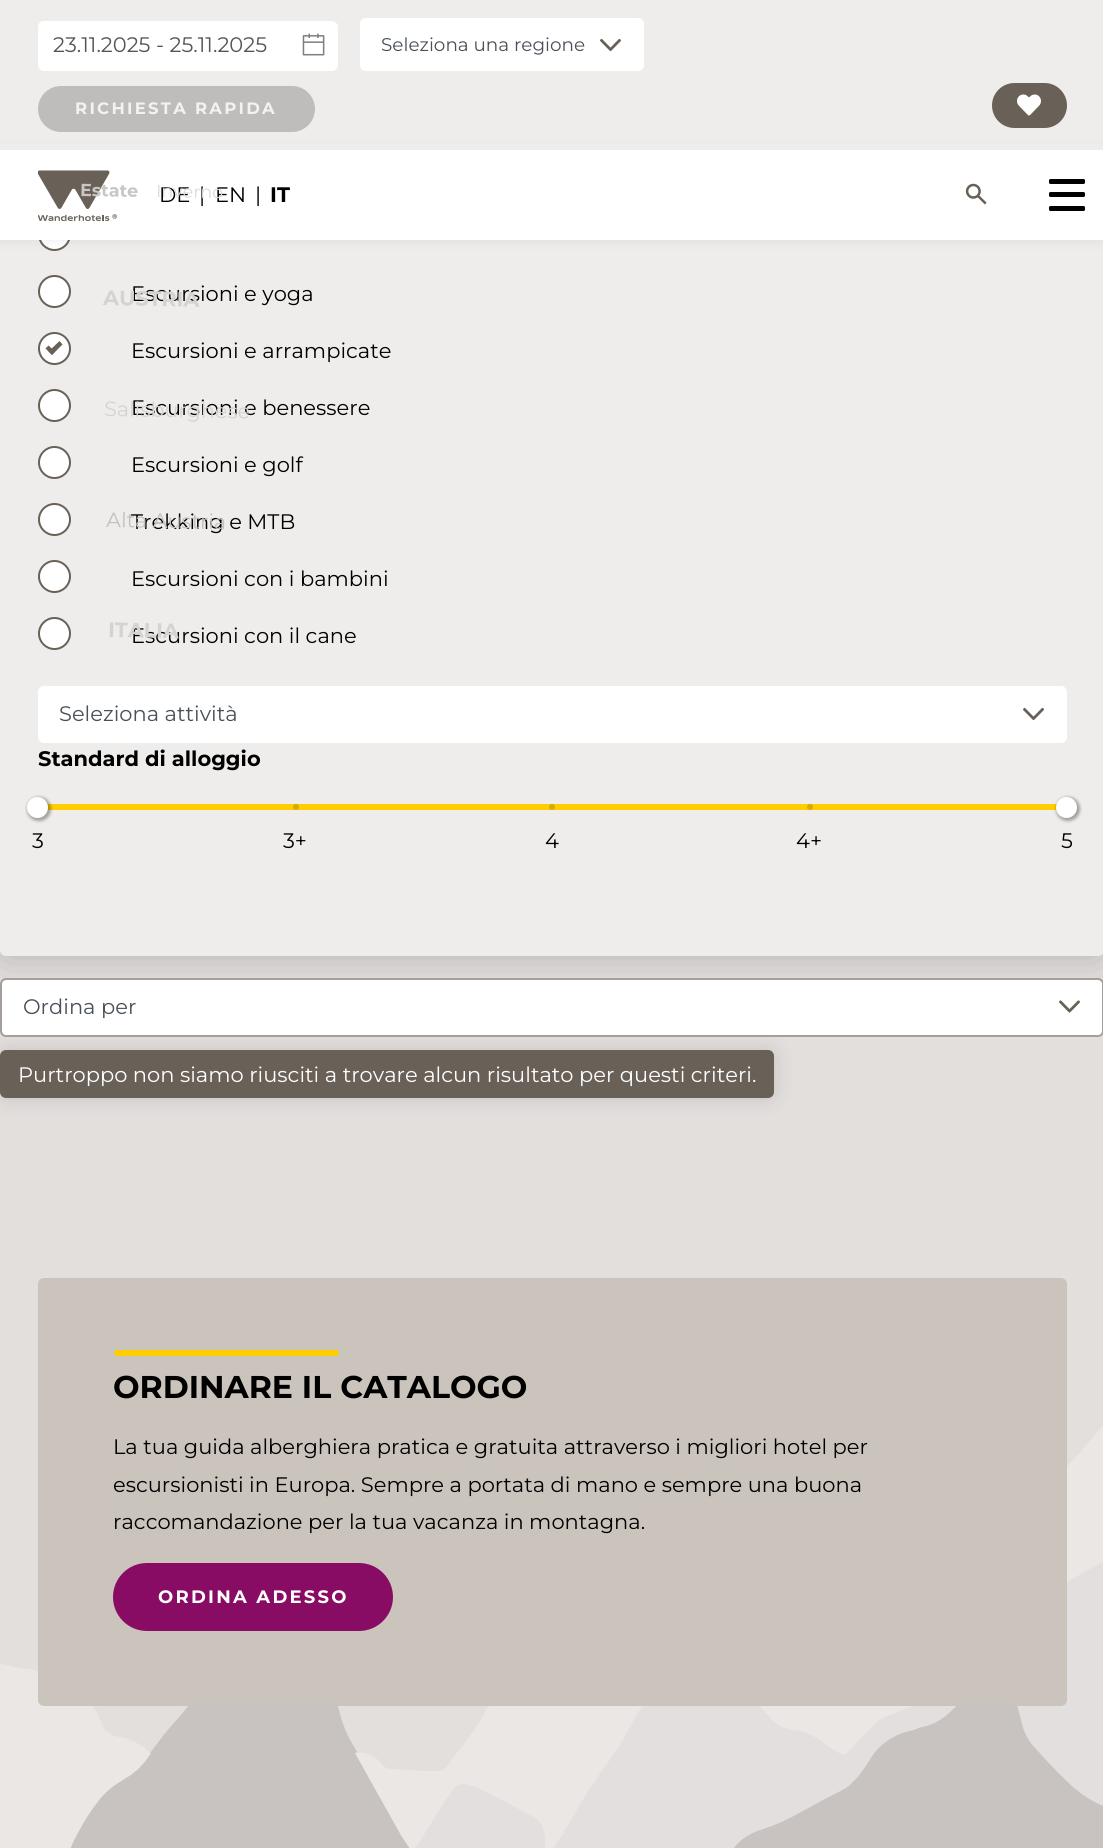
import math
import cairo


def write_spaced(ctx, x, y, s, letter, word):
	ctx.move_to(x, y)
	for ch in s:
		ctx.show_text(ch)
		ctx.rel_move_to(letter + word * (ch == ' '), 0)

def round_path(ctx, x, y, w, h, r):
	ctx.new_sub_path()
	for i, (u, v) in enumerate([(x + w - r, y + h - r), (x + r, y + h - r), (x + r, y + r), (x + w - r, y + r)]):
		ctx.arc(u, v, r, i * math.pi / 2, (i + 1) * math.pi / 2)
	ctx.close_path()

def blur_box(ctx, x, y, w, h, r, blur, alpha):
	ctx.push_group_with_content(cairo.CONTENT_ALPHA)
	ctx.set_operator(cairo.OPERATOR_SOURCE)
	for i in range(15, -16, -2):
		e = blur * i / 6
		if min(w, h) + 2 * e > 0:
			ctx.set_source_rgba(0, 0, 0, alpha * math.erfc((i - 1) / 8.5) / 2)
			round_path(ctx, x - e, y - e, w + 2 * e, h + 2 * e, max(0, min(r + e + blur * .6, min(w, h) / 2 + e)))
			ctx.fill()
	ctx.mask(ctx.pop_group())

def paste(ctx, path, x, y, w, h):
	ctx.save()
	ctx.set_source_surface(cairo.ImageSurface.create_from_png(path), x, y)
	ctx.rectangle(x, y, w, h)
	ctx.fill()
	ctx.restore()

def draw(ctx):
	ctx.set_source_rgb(0.89, 0.875, 0.867)
	ctx.paint()
	ctx.set_source_rgb(0.086, 0.11, 0.176)
	blur_box(ctx, 0, -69, 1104, 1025, 6, 21, 0.25)
	ctx.set_source_rgb(0.937, 0.929, 0.918)
	round_path(ctx, 0, -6, 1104, 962, 6)
	ctx.fill()
	ctx.set_source_rgb(1, 1, 1)
	ctx.arc(54.5, 234.5, 15.5, 0, 2 * math.pi)
	ctx.fill_preserve()
	ctx.set_source_rgb(0.412, 0.38, 0.345)
	ctx.stroke()
	ctx.set_source_rgb(0.196, 0.196, 0.196)
	blur_box(ctx, 0, 150, 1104, 90, 0, 6, 0.1)
	ctx.set_source_rgb(0.937, 0.929, 0.918)
	ctx.rectangle(0, 144, 1103, 6)
	ctx.fill()
	ctx.set_source_rgb(1, 1, 1)
	round_path(ctx, 38, 20, 300, 51, 6)
	ctx.fill()
	ctx.set_source_rgba(0, 0, 0, 0.07)
	ctx.new_path()
	ctx.move_to(44, 21)
	ctx.line_to(332, 21)
	ctx.curve_to(335, 21, 338, 24, 338, 27)
	ctx.curve_to(338, 23, 336, 20, 332, 20)
	ctx.line_to(44, 20)
	ctx.curve_to(40, 20, 38, 23, 38, 27)
	ctx.curve_to(38, 24, 40, 21, 44, 21)
	ctx.close_path()
	ctx.fill()
	ctx.select_font_face('Montserrat Thin')
	ctx.set_font_size(21)
	ctx.set_source_rgb(0.333, 0.333, 0.333)
	ctx.move_to(53, 52)
	ctx.show_text('23.11.2025 - 25.11.2025')
	paste(ctx, 'media/1.png', 302, 33, 23, 23)
	ctx.set_source_rgb(1, 1, 1)
	round_path(ctx, 360, 18, 284, 53, 6)
	ctx.fill()
	paste(ctx, 'media/2.png', 600, 38, 21, 14)
	ctx.set_font_size(18.4)
	ctx.set_source_rgb(0.286, 0.314, 0.341)
	ctx.move_to(381, 51)
	ctx.show_text('Seleziona una regione')
	ctx.set_source_rgb(0.749, 0.741, 0.733)
	round_path(ctx, 38, 86, 277, 46, 23)
	ctx.fill()
	ctx.select_font_face('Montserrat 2 Thin')
	ctx.set_font_size(16.5)
	ctx.set_source_rgb(0.953, 0.949, 0.937)
	write_spaced(ctx, 75, 114, 'RICHIESTA RAPIDA', 2.25, 0)
	ctx.set_source_rgb(0.412, 0.38, 0.345)
	round_path(ctx, 992, 83, 75, 45, 22.5)
	ctx.fill()
	paste(ctx, 'media/3.png', 1017, 94, 24, 22)
	ctx.set_source_rgb(1, 1, 1)
	ctx.arc(54.5, 291.5, 15.5, 0, 2 * math.pi)
	ctx.fill_preserve()
	ctx.set_source_rgb(0.412, 0.38, 0.345)
	ctx.stroke()
	ctx.select_font_face('Montserrat Thin')
	ctx.set_font_size(21)
	ctx.set_source_rgb(0, 0, 0)
	ctx.move_to(131, 301)
	ctx.show_text('Escursioni e yoga')
	ctx.set_source_rgb(1, 1, 1)
	ctx.new_path()
	ctx.arc(54.5, 348.5, 15.5, 0, 2 * math.pi)
	ctx.fill_preserve()
	ctx.set_source_rgb(0.412, 0.38, 0.345)
	ctx.stroke()
	ctx.new_path()
	ctx.move_to(59.5, 341)
	ctx.line_to(62.5, 344.5)
	ctx.line_to(52, 355)
	ctx.line_to(48.5, 351.5)
	ctx.close_path()
	ctx.fill()
	ctx.new_path()
	ctx.move_to(48.5, 345.5)
	ctx.line_to(55, 351.5)
	ctx.line_to(52, 355)
	ctx.line_to(45.5, 348.5)
	ctx.close_path()
	ctx.fill()
	ctx.set_source_rgb(0, 0, 0)
	ctx.move_to(131, 358)
	ctx.show_text('Escursioni e arrampicate')
	ctx.set_source_rgb(1, 1, 1)
	ctx.new_path()
	ctx.arc(54.5, 405.5, 15.5, 0, 2 * math.pi)
	ctx.fill_preserve()
	ctx.set_source_rgb(0.412, 0.38, 0.345)
	ctx.stroke()
	ctx.set_source_rgb(0, 0, 0)
	ctx.move_to(131, 415)
	ctx.show_text('Escursioni e benessere')
	ctx.set_source_rgb(1, 1, 1)
	ctx.new_path()
	ctx.arc(54.5, 462.5, 15.5, 0, 2 * math.pi)
	ctx.fill_preserve()
	ctx.set_source_rgb(0.412, 0.38, 0.345)
	ctx.stroke()
	ctx.set_source_rgb(0, 0, 0)
	ctx.move_to(131, 472)
	ctx.show_text('Escursioni e golf')
	ctx.set_source_rgb(1, 1, 1)
	ctx.new_path()
	ctx.arc(54.5, 519.5, 15.5, 0, 2 * math.pi)
	ctx.fill_preserve()
	ctx.set_source_rgb(0.412, 0.38, 0.345)
	ctx.stroke()
	ctx.set_source_rgb(0, 0, 0)
	ctx.move_to(131, 529)
	ctx.show_text('Trekking e MTB')
	ctx.set_source_rgb(1, 1, 1)
	ctx.new_path()
	ctx.arc(54.5, 576.5, 15.5, 0, 2 * math.pi)
	ctx.fill_preserve()
	ctx.set_source_rgb(0.412, 0.38, 0.345)
	ctx.stroke()
	ctx.set_source_rgb(0, 0, 0)
	ctx.move_to(131, 586)
	ctx.show_text('Escursioni con i bambini')
	ctx.set_source_rgb(1, 1, 1)
	ctx.new_path()
	ctx.arc(54.5, 633.5, 15.5, 0, 2 * math.pi)
	ctx.fill_preserve()
	ctx.set_source_rgb(0.412, 0.38, 0.345)
	ctx.stroke()
	ctx.set_source_rgb(0, 0, 0)
	ctx.move_to(131, 643)
	ctx.show_text('Escursioni con il cane')
	ctx.set_source_rgb(1, 1, 1)
	round_path(ctx, 38, 686, 1029, 57, 6)
	ctx.fill()
	paste(ctx, 'media/2.png', 1023, 707, 21, 14)
	ctx.set_source_rgb(0.286, 0.314, 0.341)
	ctx.move_to(59, 721)
	ctx.show_text('Seleziona attività')
	ctx.select_font_face('Montserrat 2 Thin')
	ctx.set_source_rgb(0, 0, 0)
	ctx.move_to(38, 766)
	ctx.show_text('Standard di alloggio')
	ctx.set_source_rgb(1, 0.804, 0)
	ctx.rectangle(47, 804, 1010, 6)
	ctx.fill()
	ctx.set_source_rgb(0, 0, 0)
	blur_box(ctx, 27, 797, 24, 24, 12, 1.5, 0.32)
	ctx.set_source_rgb(1, 1, 1)
	ctx.arc(37.5, 807.5, 10.5, 0, 2 * math.pi)
	ctx.fill()
	ctx.set_source_rgb(0, 0, 0)
	blur_box(ctx, 1056, 797, 24, 24, 12, 1.5, 0.32)
	ctx.set_source_rgb(1, 1, 1)
	ctx.arc(1066.5, 807.5, 10.5, 0, 2 * math.pi)
	ctx.fill()
	ctx.select_font_face('Montserrat Thin')
	ctx.set_source_rgb(0, 0, 0)
	ctx.move_to(32, 848)
	ctx.show_text('3')
	ctx.set_source_rgb(0.839, 0.675, 0)
	ctx.new_path()
	ctx.arc(296, 807, 3, 0, 2 * math.pi)
	ctx.fill()
	ctx.set_source_rgb(0, 0, 0)
	ctx.move_to(283, 848)
	ctx.show_text('3+')
	ctx.set_source_rgb(0.839, 0.675, 0)
	ctx.new_path()
	ctx.arc(552, 807, 3, 0, 2 * math.pi)
	ctx.fill()
	ctx.set_source_rgb(0, 0, 0)
	ctx.move_to(545, 848)
	ctx.show_text('4')
	ctx.set_source_rgb(0.839, 0.675, 0)
	ctx.new_path()
	ctx.arc(810, 807, 3, 0, 2 * math.pi)
	ctx.fill()
	ctx.set_source_rgb(0, 0, 0)
	ctx.move_to(796, 848)
	ctx.show_text('4+')
	ctx.move_to(1061, 848)
	ctx.show_text('5')
	ctx.set_source_rgb(0.086, 0.11, 0.176)
	blur_box(ctx, 0, 1050, 774, 48, 6, 10.5, 0.15)
	ctx.set_source_rgb(1, 1, 1)
	round_path(ctx, 2, 980, 1101, 55, 4)
	ctx.fill()
	paste(ctx, 'media/4.png', 1059, 1000, 21, 13)
	round_path(ctx, 1, 979, 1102, 57, 5)
	ctx.set_source_rgb(0.647, 0.62, 0.604)
	ctx.stroke()
	ctx.set_source_rgb(0.286, 0.314, 0.341)
	ctx.move_to(23, 1014)
	ctx.show_text('Ordina per')
	ctx.set_source_rgb(0.412, 0.38, 0.345)
	round_path(ctx, 1.5, 1051.5, 771, 45, 4.5)
	ctx.fill_preserve()
	ctx.set_line_width(3)
	ctx.stroke()
	ctx.set_source_rgb(1, 1, 1)
	ctx.move_to(18, 1082)
	ctx.show_text('Purtroppo non siamo riusciti a trovare alcun risultato per questi criteri.')
	ctx.rectangle(0, 150, 1103, 90)
	ctx.fill()
	paste(ctx, 'media/5.png', 38, 170, 79, 51)
	ctx.select_font_face('Montserrat 2 Thin')
	ctx.set_font_size(17.5)
	ctx.set_source_rgb(0.788, 0.776, 0.765)
	ctx.save()
	ctx.translate(80, 196)
	ctx.rotate(1 * math.pi / 180)
	ctx.move_to(0, 0)
	ctx.show_text('Estate')
	ctx.restore()
	ctx.select_font_face('Montserrat Thin')
	ctx.set_font_size(21)
	ctx.set_source_rgb(0, 0, 0)
	for x, y, s in [
		(159, 202, 'DE'),
		(199, 202, '|'),
		(215, 202, 'EN'),
	]:
		ctx.move_to(x, y)
		ctx.show_text(s)
	ctx.set_font_size(17.5)
	ctx.set_source_rgb(0.855, 0.855, 0.855)
	ctx.save()
	ctx.translate(156, 197)
	ctx.rotate(1 * math.pi / 180)
	ctx.move_to(0, 0)
	ctx.show_text('Inverno')
	ctx.restore()
	ctx.select_font_face('Montserrat 2 Thin')
	ctx.set_font_size(20.75)
	ctx.set_source_rgb(0.831, 0.827, 0.816)
	ctx.save()
	ctx.translate(103, 305)
	ctx.rotate(1 * math.pi / 180)
	ctx.move_to(0, 0)
	ctx.show_text('AUSTRIA')
	ctx.restore()
	ctx.select_font_face('Montserrat Thin')
	ctx.save()
	ctx.translate(104, 416)
	ctx.rotate(1 * math.pi / 180)
	ctx.move_to(0, 0)
	ctx.show_text('Salisburghese')
	ctx.restore()
	ctx.set_source_rgb(0.765, 0.757, 0.749)
	ctx.save()
	ctx.translate(106, 527)
	ctx.rotate(1 * math.pi / 180)
	ctx.move_to(0, 0)
	ctx.show_text('Alta Austria')
	ctx.restore()
	ctx.select_font_face('Montserrat 2 Thin')
	ctx.set_source_rgb(0.831, 0.827, 0.816)
	ctx.save()
	ctx.translate(108, 637)
	ctx.rotate(1 * math.pi / 180)
	ctx.move_to(0, 0)
	ctx.show_text('ITALIA')
	ctx.restore()
	ctx.set_source_rgb(0, 0, 0)
	round_path(ctx, 1049, 192, 36, 5, 1.5)
	ctx.fill()
	round_path(ctx, 1049, 179, 36, 5, 1.5)
	ctx.fill()
	round_path(ctx, 1049, 206, 36, 5, 1.5)
	ctx.fill()
	paste(ctx, 'media/6.png', 965, 183, 22, 22)
	ctx.select_font_face('Montserrat Thin')
	ctx.set_font_size(21)
	ctx.move_to(255, 202)
	ctx.show_text('|')
	ctx.select_font_face('Montserrat 2 Thin')
	ctx.move_to(270, 202)
	ctx.show_text('IT')
	paste(ctx, 'media/7.png', 0, 1426, 1103, 422)
	ctx.set_source_rgb(0.796, 0.769, 0.737)
	round_path(ctx, 38, 1278, 1029, 428, 6)
	ctx.fill()
	ctx.set_source_rgb(1, 0.804, 0)
	round_path(ctx, 114, 1350, 225, 6, 3)
	ctx.fill()
	ctx.set_font_size(31.5)
	ctx.set_source_rgb(0, 0, 0)
	ctx.move_to(113, 1398)
	ctx.show_text('ORDINARE IL CATALOGO')
	ctx.select_font_face('Montserrat Thin')
	ctx.set_font_size(21)
	for x, y, s in [
		(113, 1454, 'La tua guida alberghiera pratica e gratuita attraverso i migliori hotel per'),
		(113, 1492, 'escursionisti in Europa. Sempre a portata di mano e sempre una buona'),
		(113, 1529, 'raccomandazione per la tua vacanza in montagna.'),
	]:
		ctx.move_to(x, y)
		ctx.show_text(s)
	ctx.set_source_rgb(0.537, 0.047, 0.392)
	round_path(ctx, 113, 1563, 280, 68, 34)
	ctx.fill()
	ctx.select_font_face('Montserrat 2 Thin')
	ctx.set_font_size(18)
	ctx.set_source_rgb(1, 1, 1)
	write_spaced(ctx, 158, 1603, 'ORDINA ADESSO', 2.25, 0)


surface = cairo.ImageSurface(cairo.FORMAT_RGB24, 1103, 1848)
ctx = cairo.Context(surface)
options = cairo.FontOptions()
options.set_hint_metrics(cairo.HINT_METRICS_OFF)
options.set_hint_style(cairo.HINT_STYLE_NONE)
ctx.set_font_options(options)
ctx.set_miter_limit(4)
draw(ctx)
surface.write_to_png('image.png')
